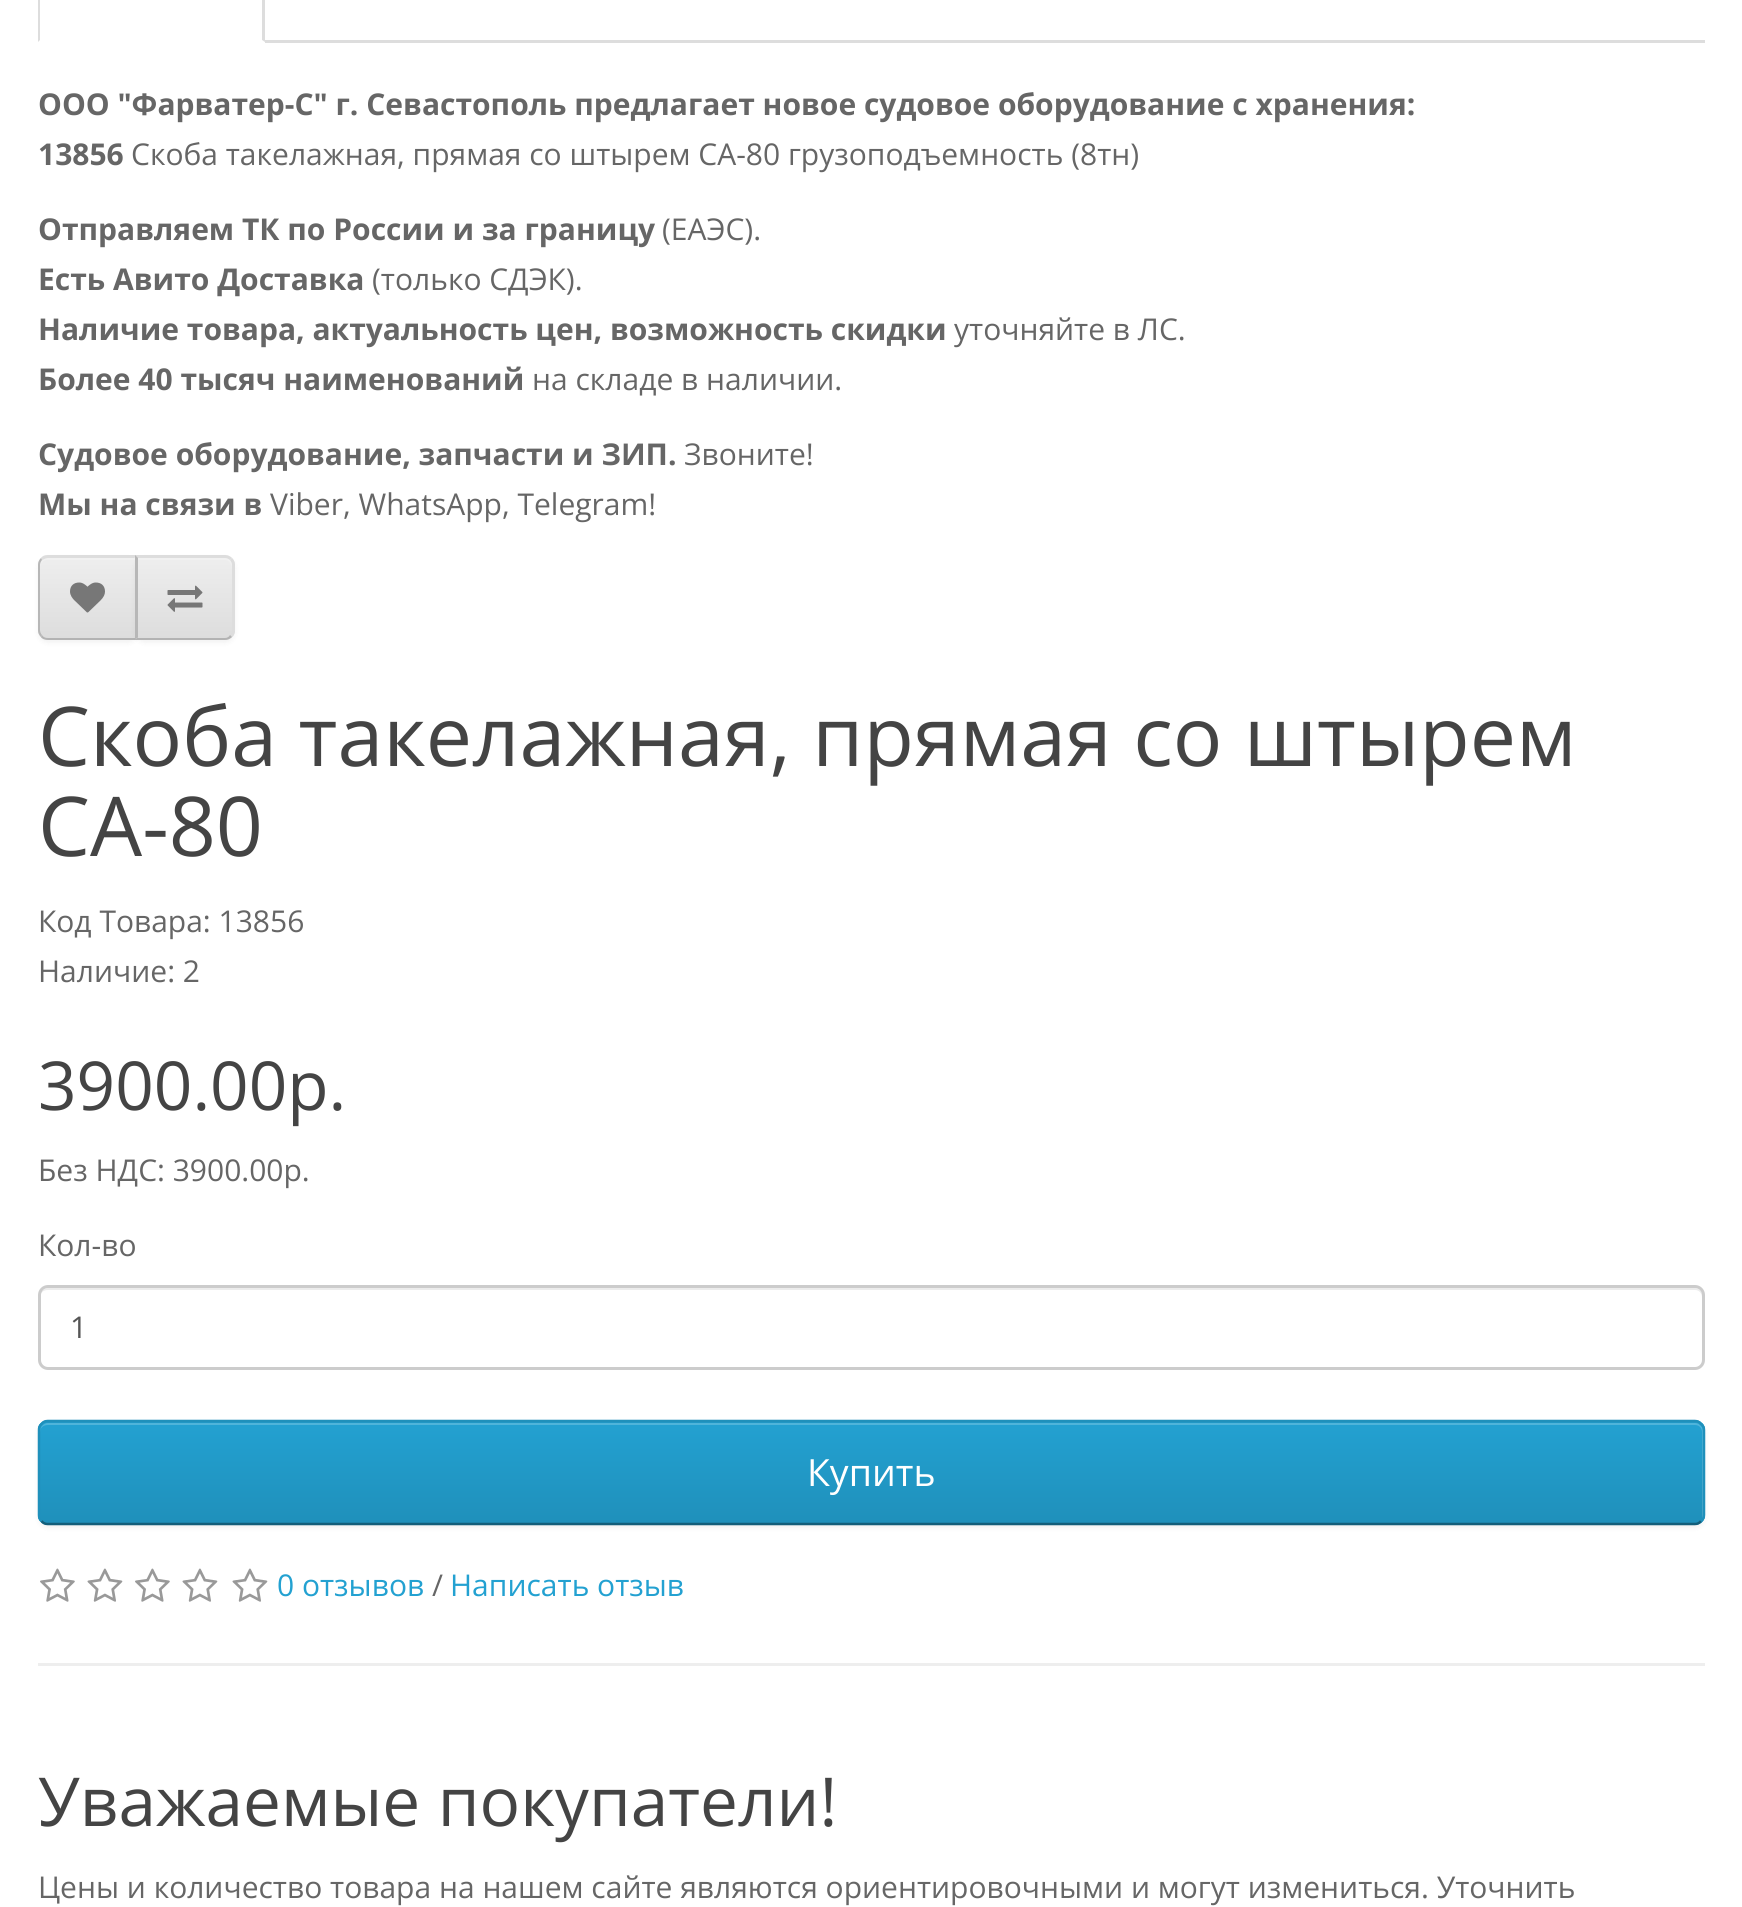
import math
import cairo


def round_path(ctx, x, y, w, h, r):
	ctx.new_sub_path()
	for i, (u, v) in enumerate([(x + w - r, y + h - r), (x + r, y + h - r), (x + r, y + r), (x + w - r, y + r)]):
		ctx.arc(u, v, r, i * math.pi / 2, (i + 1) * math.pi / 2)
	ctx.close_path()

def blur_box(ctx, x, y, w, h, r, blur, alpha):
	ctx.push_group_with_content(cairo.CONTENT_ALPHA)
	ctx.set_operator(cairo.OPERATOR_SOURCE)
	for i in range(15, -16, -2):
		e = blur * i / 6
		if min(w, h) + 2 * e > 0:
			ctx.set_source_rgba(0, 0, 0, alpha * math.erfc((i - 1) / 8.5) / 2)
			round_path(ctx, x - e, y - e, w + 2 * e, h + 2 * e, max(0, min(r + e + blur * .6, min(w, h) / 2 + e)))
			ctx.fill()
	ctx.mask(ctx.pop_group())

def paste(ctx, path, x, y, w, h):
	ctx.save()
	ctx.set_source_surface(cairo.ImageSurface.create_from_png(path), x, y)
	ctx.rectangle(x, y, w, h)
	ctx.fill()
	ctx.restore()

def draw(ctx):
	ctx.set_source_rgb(1, 1, 1)
	ctx.paint()
	ctx.set_source_rgb(0.867, 0.867, 0.867)
	ctx.rectangle(265, 40, 1440, 3)
	ctx.fill()
	ctx.new_path()
	ctx.move_to(265, 42)
	ctx.line_to(265, -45)
	ctx.curve_to(265, -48, 264, -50, 262, -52)
	ctx.line_to(260, -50)
	ctx.curve_to(261, -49, 262, -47, 262, -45)
	ctx.line_to(262, 40)
	ctx.close_path()
	ctx.fill()
	ctx.new_path()
	ctx.move_to(41, -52)
	ctx.curve_to(39, -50, 38, -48, 38, -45)
	ctx.line_to(38, 42)
	ctx.line_to(40, 40)
	ctx.line_to(40, -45)
	ctx.curve_to(40, -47, 41, -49, 42, -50)
	ctx.close_path()
	ctx.fill()
	ctx.select_font_face('Open Sans', cairo.FONT_SLANT_NORMAL, cairo.FONT_WEIGHT_BOLD)
	ctx.set_font_size(30)
	ctx.set_source_rgb(0.4, 0.4, 0.4)
	ctx.move_to(38, 115)
	ctx.show_text('ООО "Фарватер-С" г. Севастополь предлагает новое судовое оборудование с хранения:')
	ctx.move_to(38, 165)
	ctx.show_text('13856')
	ctx.select_font_face('Open Sans')
	ctx.move_to(131, 165)
	ctx.show_text('Скоба такелажная, прямая со штырем СА-80 грузоподъемность (8тн)')
	ctx.select_font_face('Open Sans', cairo.FONT_SLANT_NORMAL, cairo.FONT_WEIGHT_BOLD)
	ctx.move_to(38, 240)
	ctx.show_text('Отправляем ТК по России и за границу')
	ctx.select_font_face('Open Sans')
	ctx.move_to(662, 240)
	ctx.show_text('(ЕАЭС).')
	ctx.select_font_face('Open Sans', cairo.FONT_SLANT_NORMAL, cairo.FONT_WEIGHT_BOLD)
	ctx.move_to(38, 290)
	ctx.show_text('Есть Авито Доставка')
	ctx.select_font_face('Open Sans')
	ctx.move_to(372, 290)
	ctx.show_text('(только СДЭК).')
	ctx.select_font_face('Open Sans', cairo.FONT_SLANT_NORMAL, cairo.FONT_WEIGHT_BOLD)
	ctx.move_to(38, 340)
	ctx.show_text('Наличие товара, актуальность цен, возможность скидки')
	ctx.select_font_face('Open Sans')
	ctx.move_to(954, 340)
	ctx.show_text('уточняйте в ЛС.')
	ctx.select_font_face('Open Sans', cairo.FONT_SLANT_NORMAL, cairo.FONT_WEIGHT_BOLD)
	ctx.move_to(38, 390)
	ctx.show_text('Более 40 тысяч наименований')
	ctx.select_font_face('Open Sans')
	ctx.move_to(532, 390)
	ctx.show_text('на складе в наличии.')
	ctx.select_font_face('Open Sans', cairo.FONT_SLANT_NORMAL, cairo.FONT_WEIGHT_BOLD)
	ctx.move_to(38, 465)
	ctx.show_text('Судовое оборудование, запчасти и ЗИП.')
	ctx.select_font_face('Open Sans')
	ctx.move_to(684, 465)
	ctx.show_text('Звоните!')
	ctx.select_font_face('Open Sans', cairo.FONT_SLANT_NORMAL, cairo.FONT_WEIGHT_BOLD)
	ctx.move_to(38, 515)
	ctx.show_text('Мы на связи в')
	ctx.select_font_face('Open Sans')
	ctx.move_to(270, 515)
	ctx.show_text('Viber, WhatsApp, Telegram!')
	ctx.set_source_rgb(0, 0, 0)
	blur_box(ctx, 38, 558, 100, 85, 10, 2.5, 0.05)
	ctx.save()
	ctx.new_path()
	ctx.move_to(48, 555)
	ctx.line_to(138, 555)
	ctx.line_to(138, 640)
	ctx.line_to(48, 640)
	ctx.curve_to(42.5, 640, 38, 635.5, 38, 630)
	ctx.line_to(38, 565)
	ctx.curve_to(38, 559.5, 42.5, 555, 48, 555)
	ctx.close_path()
	ctx.clip()
	gradient = cairo.LinearGradient(88, 558, 88, 638)
	gradient.add_color_stop_rgba(0, 0.933, 0.933, 0.933, 1)
	gradient.add_color_stop_rgba(1, 0.867, 0.867, 0.867, 1)
	ctx.set_source(gradient)
	ctx.rectangle(38, 558, 97, 80)
	ctx.fill()
	ctx.restore()
	ctx.set_source_rgb(0.945, 0.945, 0.945)
	ctx.new_path()
	ctx.move_to(48, 560)
	ctx.line_to(135, 560)
	ctx.line_to(135, 558)
	ctx.line_to(48, 558)
	ctx.curve_to(44, 558, 40, 562, 40, 566)
	ctx.line_to(40, 568)
	ctx.curve_to(40, 563, 43, 560, 48, 560)
	ctx.close_path()
	ctx.fill()
	ctx.set_source_rgb(0.867, 0.867, 0.867)
	ctx.new_path()
	ctx.move_to(48, 555)
	ctx.curve_to(45, 555, 42, 556, 41, 558)
	ctx.line_to(42, 560)
	ctx.curve_to(44, 559, 46, 558, 48, 558)
	ctx.line_to(134, 558)
	ctx.line_to(138, 555)
	ctx.close_path()
	ctx.fill()
	ctx.new_path()
	ctx.move_to(138, 555)
	ctx.line_to(138, 640)
	ctx.line_to(135, 638)
	ctx.line_to(135, 558)
	ctx.line_to(134, 558)
	ctx.close_path()
	ctx.fill()
	ctx.set_source_rgb(0.702, 0.702, 0.702)
	ctx.new_path()
	ctx.move_to(138, 640)
	ctx.line_to(135, 638)
	ctx.line_to(48, 638)
	ctx.curve_to(45, 638, 43, 637, 42, 635)
	ctx.line_to(41, 637)
	ctx.curve_to(42, 639, 45, 640, 48, 640)
	ctx.close_path()
	ctx.fill()
	ctx.set_source_rgb(0.718, 0.718, 0.718)
	ctx.new_path()
	ctx.move_to(41, 558)
	ctx.curve_to(39, 560, 38, 562, 38, 565)
	ctx.line_to(38, 630)
	ctx.curve_to(38, 633, 39, 635, 41, 637)
	ctx.line_to(42, 635)
	ctx.curve_to(41, 634, 40, 632, 40, 630)
	ctx.line_to(40, 565)
	ctx.curve_to(40, 563, 41, 561, 42, 560)
	ctx.close_path()
	ctx.fill()
	paste(ctx, 'media/1.png', 70, 582, 35, 31)
	ctx.set_source_rgb(0, 0, 0)
	blur_box(ctx, 135, 558, 100, 85, 10, 2.5, 0.05)
	ctx.save()
	ctx.new_path()
	ctx.move_to(135, 555)
	ctx.line_to(225, 555)
	ctx.curve_to(230.5, 555, 235, 559.5, 235, 565)
	ctx.line_to(235, 630)
	ctx.curve_to(235, 635.5, 230.5, 640, 225, 640)
	ctx.line_to(135, 640)
	ctx.close_path()
	ctx.clip()
	gradient = cairo.LinearGradient(185, 558, 185, 638)
	gradient.add_color_stop_rgba(0, 0.933, 0.933, 0.933, 1)
	gradient.add_color_stop_rgba(1, 0.867, 0.867, 0.867, 1)
	ctx.set_source(gradient)
	ctx.rectangle(137, 558, 98, 80)
	ctx.fill()
	ctx.restore()
	ctx.set_source_rgba(1, 1, 1, 0.2)
	ctx.new_path()
	ctx.move_to(138, 560)
	ctx.line_to(226, 560)
	ctx.curve_to(234, 562, 232, 574, 232, 579)
	ctx.line_to(232, 634)
	ctx.curve_to(233, 633, 233, 632, 233, 630)
	ctx.line_to(233, 566)
	ctx.curve_to(233, 562, 229, 558, 225, 558)
	ctx.line_to(138, 558)
	ctx.close_path()
	ctx.fill()
	ctx.set_source_rgb(0.867, 0.867, 0.867)
	ctx.new_path()
	ctx.move_to(135, 555)
	ctx.line_to(138, 558)
	ctx.line_to(225, 558)
	ctx.curve_to(227, 558, 229, 559, 230, 560)
	ctx.line_to(232, 558)
	ctx.curve_to(230, 556, 228, 555, 225, 555)
	ctx.close_path()
	ctx.fill()
	ctx.new_path()
	ctx.move_to(235, 630)
	ctx.line_to(235, 565)
	ctx.curve_to(235, 562, 234, 560, 232, 558)
	ctx.line_to(230, 560)
	ctx.curve_to(231, 561, 232, 563, 232, 565)
	ctx.line_to(232, 630)
	ctx.curve_to(232, 632, 231, 634, 230, 635)
	ctx.line_to(232, 637)
	ctx.curve_to(234, 636, 235, 633, 235, 630)
	ctx.close_path()
	ctx.fill()
	ctx.set_source_rgb(0.702, 0.702, 0.702)
	ctx.new_path()
	ctx.move_to(225, 640)
	ctx.curve_to(228, 640, 230, 639, 232, 637)
	ctx.line_to(230, 635)
	ctx.curve_to(229, 637, 227, 638, 225, 638)
	ctx.line_to(138, 638)
	ctx.line_to(138, 637)
	ctx.line_to(135, 640)
	ctx.close_path()
	ctx.fill()
	ctx.set_source_rgb(0.718, 0.718, 0.718)
	ctx.new_path()
	ctx.move_to(135, 555)
	ctx.line_to(135, 640)
	ctx.line_to(138, 637)
	ctx.line_to(138, 558)
	ctx.close_path()
	ctx.fill()
	paste(ctx, 'media/2.png', 167, 585, 36, 27)
	ctx.set_font_size(82.5)
	ctx.set_source_rgb(0.267, 0.267, 0.267)
	ctx.move_to(38, 766)
	ctx.show_text('Скоба такелажная, прямая со штырем')
	ctx.move_to(38, 856)
	ctx.show_text('СА-80')
	ctx.set_font_size(30)
	ctx.set_source_rgb(0.4, 0.4, 0.4)
	ctx.move_to(38, 932)
	ctx.show_text('Код Товара: 13856')
	ctx.move_to(38, 982)
	ctx.show_text('Наличие: 2')
	ctx.set_font_size(67.5)
	ctx.set_source_rgb(0.267, 0.267, 0.267)
	ctx.move_to(38, 1110)
	ctx.show_text('3900.00р.')
	ctx.set_font_size(30)
	ctx.set_source_rgb(0.4, 0.4, 0.4)
	ctx.move_to(38, 1181)
	ctx.show_text('Без НДС: 3900.00р.')
	ctx.move_to(38, 1256)
	ctx.show_text('Кол-во')
	ctx.set_source_rgb(0.925, 0.925, 0.925)
	ctx.new_path()
	ctx.move_to(48, 1290)
	ctx.line_to(1695, 1290)
	ctx.curve_to(1699, 1290, 1702, 1293, 1702, 1298)
	ctx.line_to(1702, 1364)
	ctx.curve_to(1703, 1363, 1703, 1362, 1703, 1360)
	ctx.line_to(1703, 1296)
	ctx.curve_to(1703, 1292, 1699, 1288, 1695, 1288)
	ctx.line_to(48, 1288)
	ctx.curve_to(44, 1288, 40, 1292, 40, 1296)
	ctx.line_to(40, 1298)
	ctx.curve_to(40, 1293, 43, 1290, 48, 1290)
	ctx.close_path()
	ctx.fill()
	round_path(ctx, 39.5, 1286.5, 1664, 82, 8.5)
	ctx.set_source_rgb(0.8, 0.8, 0.8)
	ctx.set_line_width(3)
	ctx.stroke()
	ctx.set_source_rgb(0.333, 0.333, 0.333)
	ctx.move_to(70, 1338)
	ctx.show_text('1')
	ctx.set_source_rgb(0, 0, 0)
	blur_box(ctx, 38, 1423, 1667, 105, 10, 2.5, 0.05)
	ctx.set_source_rgb(0.133, 0.604, 0.784)
	round_path(ctx, 38, 1420, 1667, 105, 10)
	ctx.fill()
	ctx.save()
	round_path(ctx, 38, 1420, 1667, 105, 10)
	ctx.clip()
	gradient = cairo.LinearGradient(871, 1423, 871, 1523)
	gradient.add_color_stop_rgba(0, 0.137, 0.631, 0.82, 1)
	gradient.add_color_stop_rgba(1, 0.122, 0.565, 0.733, 1)
	ctx.set_source(gradient)
	ctx.rectangle(38, 1423, 1667, 100)
	ctx.fill()
	ctx.restore()
	ctx.set_source_rgba(1, 1, 1, 0.2)
	ctx.new_path()
	ctx.move_to(48, 1425)
	ctx.line_to(1695, 1425)
	ctx.curve_to(1699, 1425, 1702, 1428, 1702, 1432)
	ctx.line_to(1702, 1519)
	ctx.curve_to(1703, 1518, 1703, 1516, 1703, 1515)
	ctx.line_to(1703, 1431)
	ctx.curve_to(1703, 1427, 1699, 1423, 1695, 1423)
	ctx.line_to(48, 1423)
	ctx.curve_to(44, 1423, 40, 1427, 40, 1431)
	ctx.line_to(40, 1432)
	ctx.curve_to(40, 1428, 43, 1425, 48, 1425)
	ctx.close_path()
	ctx.fill()
	ctx.new_path()
	ctx.move_to(1701, 1521)
	ctx.curve_to(1699.5, 1523, 1697.5, 1524, 1695, 1524)
	ctx.line_to(47.5, 1524)
	ctx.curve_to(45, 1524, 43, 1523, 41.5, 1521)
	ctx.set_source_rgb(0.078, 0.369, 0.478)
	ctx.set_line_width(2.5)
	ctx.stroke()
	ctx.new_path()
	ctx.move_to(41.5, 1521)
	ctx.curve_to(39.5, 1519.5, 39, 1517.5, 39, 1515)
	ctx.line_to(39, 1430)
	ctx.curve_to(39, 1427.5, 39.5, 1425.5, 41.5, 1424)
	ctx.curve_to(43, 1422, 45, 1421, 47.5, 1421)
	ctx.line_to(1695, 1421)
	ctx.curve_to(1697.5, 1421, 1699.5, 1422, 1701, 1424)
	ctx.curve_to(1703, 1425.5, 1704, 1427.5, 1704, 1430)
	ctx.line_to(1704, 1515)
	ctx.curve_to(1704, 1517.5, 1703, 1519.5, 1701, 1521)
	ctx.set_source_rgb(0.122, 0.565, 0.733)
	ctx.stroke()
	ctx.set_font_size(37.5)
	ctx.set_source_rgb(1, 1, 1)
	ctx.move_to(807, 1486)
	ctx.show_text('Купить')
	paste(ctx, 'media/3.png', 40, 1568, 35, 34)
	paste(ctx, 'media/4.png', 87, 1568, 36, 34)
	paste(ctx, 'media/3.png', 135, 1568, 35, 34)
	paste(ctx, 'media/4.png', 182, 1568, 36, 34)
	paste(ctx, 'media/4.png', 232, 1568, 36, 34)
	ctx.set_font_size(30)
	ctx.set_source_rgb(0.137, 0.631, 0.82)
	ctx.move_to(277, 1596)
	ctx.show_text('0 отзывов')
	ctx.set_source_rgb(0.4, 0.4, 0.4)
	ctx.move_to(432, 1596)
	ctx.show_text('/')
	ctx.set_source_rgb(0.137, 0.631, 0.82)
	ctx.move_to(450, 1596)
	ctx.show_text('Написать отзыв')
	ctx.set_source_rgb(0.933, 0.933, 0.933)
	ctx.rectangle(38, 1663, 1667, 3)
	ctx.fill()
	ctx.set_font_size(67.5)
	ctx.set_source_rgb(0.267, 0.267, 0.267)
	ctx.move_to(38, 1826)
	ctx.show_text('Уважаемые покупатели!')
	ctx.set_font_size(30)
	ctx.set_source_rgb(0.4, 0.4, 0.4)
	ctx.move_to(38, 1898)
	ctx.show_text('Цены и количество товара на нашем сайте являются ориентировочными и могут измениться. Уточнить')


surface = cairo.ImageSurface(cairo.FORMAT_RGB24, 1742, 1907)
ctx = cairo.Context(surface)
options = cairo.FontOptions()
options.set_hint_metrics(cairo.HINT_METRICS_OFF)
options.set_hint_style(cairo.HINT_STYLE_NONE)
ctx.set_font_options(options)
ctx.set_miter_limit(4)
draw(ctx)
surface.write_to_png('image.png')
